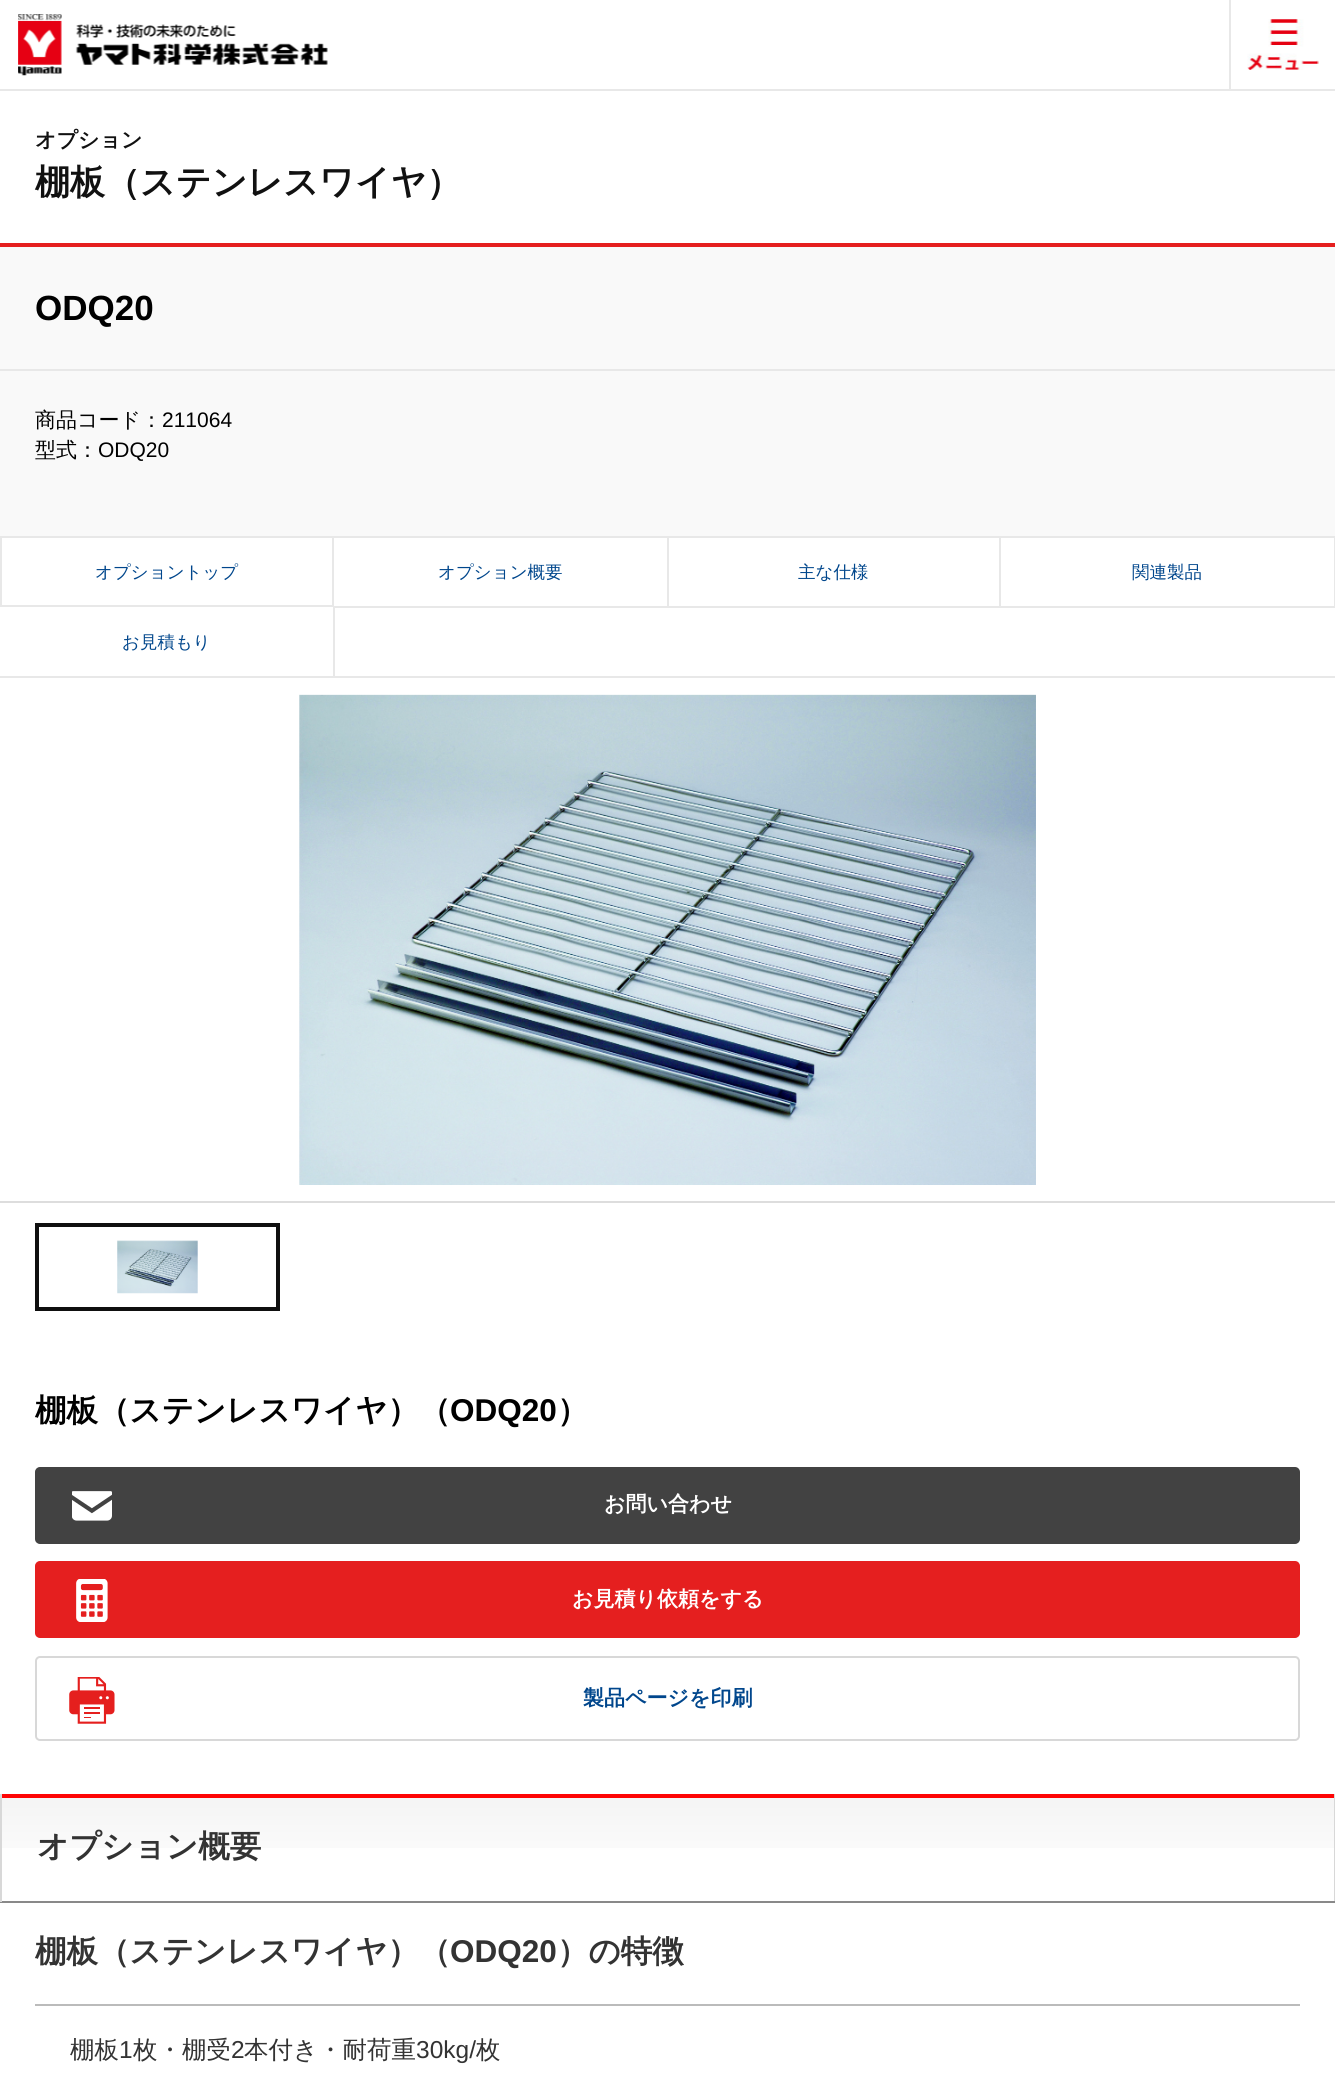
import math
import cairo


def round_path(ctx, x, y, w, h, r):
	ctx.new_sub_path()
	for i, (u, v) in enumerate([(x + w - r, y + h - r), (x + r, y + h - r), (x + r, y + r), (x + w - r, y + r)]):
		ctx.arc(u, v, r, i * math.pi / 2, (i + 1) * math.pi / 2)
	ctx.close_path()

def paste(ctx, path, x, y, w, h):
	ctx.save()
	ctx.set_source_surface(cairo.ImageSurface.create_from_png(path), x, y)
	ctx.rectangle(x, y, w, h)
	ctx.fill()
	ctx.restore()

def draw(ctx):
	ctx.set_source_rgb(1, 1, 1)
	ctx.paint()
	ctx.set_source_rgb(0.91, 0.91, 0.91)
	ctx.rectangle(0, 89, 1335, 2)
	ctx.fill()
	paste(ctx, 'media/1.png', 18, 14, 310, 62)
	ctx.rectangle(1229, 0, 2, 89)
	ctx.fill()
	paste(ctx, 'media/2.png', 1247, 19, 72, 51)
	ctx.select_font_face('WenQuanYi Zen Hei', cairo.FONT_SLANT_NORMAL, cairo.FONT_WEIGHT_BOLD)
	ctx.set_font_size(21)
	ctx.set_source_rgb(0.067, 0.067, 0.067)
	ctx.move_to(35, 147)
	ctx.show_text('オプション')
	ctx.set_font_size(35)
	ctx.move_to(35, 194)
	ctx.show_text('棚板（ステンレスワイヤ）')
	ctx.set_source_rgb(0.973, 0.973, 0.973)
	ctx.rectangle(0, 247, 1335, 289)
	ctx.fill()
	ctx.set_source_rgb(0.898, 0.122, 0.122)
	ctx.rectangle(0, 243, 1335, 4)
	ctx.fill()
	ctx.set_source_rgb(0.91, 0.91, 0.91)
	ctx.rectangle(0, 369, 1335, 2)
	ctx.fill()
	ctx.select_font_face('Liberation Sans', cairo.FONT_SLANT_NORMAL, cairo.FONT_WEIGHT_BOLD)
	ctx.set_source_rgb(0, 0, 0)
	ctx.move_to(35, 320)
	ctx.show_text('ODQ20')
	ctx.select_font_face('WenQuanYi Zen Hei Medium')
	ctx.set_font_size(21)
	ctx.move_to(35, 427)
	ctx.show_text('商品コード：')
	ctx.select_font_face('Liberation Sans')
	ctx.move_to(162, 427)
	ctx.show_text('211064')
	ctx.select_font_face('WenQuanYi Zen Hei Medium')
	ctx.move_to(35, 457)
	ctx.show_text('型式：')
	ctx.select_font_face('Liberation Sans')
	ctx.move_to(98, 457)
	ctx.show_text('ODQ20')
	ctx.rectangle(1, 537, 332, 69)
	ctx.set_source_rgb(0.91, 0.91, 0.91)
	ctx.stroke()
	ctx.select_font_face('WenQuanYi Zen Hei Medium')
	ctx.set_font_size(17.5)
	ctx.set_source_rgb(0, 0.275, 0.549)
	ctx.move_to(95, 578)
	ctx.show_text('オプショントップ')
	ctx.set_source_rgb(0.91, 0.91, 0.91)
	ctx.rectangle(334, 536, 1001, 2)
	ctx.rectangle(667, 536, 2, 71)
	ctx.rectangle(334, 606, 335, 2)
	ctx.fill()
	ctx.set_source_rgb(0, 0.275, 0.549)
	ctx.move_to(438, 578)
	ctx.show_text('オプション概要')
	ctx.set_source_rgb(0.91, 0.91, 0.91)
	ctx.rectangle(999, 536, 2, 71)
	ctx.fill()
	ctx.rectangle(669, 606, 332, 2)
	ctx.fill()
	ctx.set_source_rgb(0, 0.275, 0.549)
	ctx.move_to(798, 578)
	ctx.show_text('主な仕様')
	ctx.set_source_rgb(0.91, 0.91, 0.91)
	ctx.rectangle(1334, 536, 1, 71)
	ctx.fill()
	ctx.rectangle(1001, 606, 334, 2)
	ctx.fill()
	ctx.set_source_rgb(0, 0.275, 0.549)
	ctx.move_to(1132, 578)
	ctx.show_text('関連製品')
	ctx.set_source_rgb(0.91, 0.91, 0.91)
	ctx.rectangle(333, 607, 2, 69)
	ctx.fill()
	ctx.set_source_rgb(0, 0.275, 0.549)
	ctx.move_to(122, 648)
	ctx.show_text('お見積もり')
	ctx.set_source_rgb(0.91, 0.91, 0.91)
	ctx.rectangle(0, 676, 1335, 2)
	ctx.fill()
	ctx.set_source_rgb(0.867, 0.867, 0.867)
	ctx.rectangle(0, 1201, 1335, 2)
	ctx.fill()
	paste(ctx, 'media/3.png', 299, 694, 737, 491)
	ctx.rectangle(37, 1225, 241, 84)
	ctx.set_source_rgb(0.059, 0.059, 0.059)
	ctx.set_line_width(4)
	ctx.stroke()
	paste(ctx, 'media/4.png', 117, 1240, 81, 54)
	ctx.select_font_face('WenQuanYi Zen Hei', cairo.FONT_SLANT_NORMAL, cairo.FONT_WEIGHT_BOLD)
	ctx.set_font_size(31.5)
	ctx.set_source_rgb(0, 0, 0)
	ctx.move_to(35, 1421)
	ctx.show_text('棚板（ステンレスワイヤ）（')
	ctx.select_font_face('Liberation Sans', cairo.FONT_SLANT_NORMAL, cairo.FONT_WEIGHT_BOLD)
	ctx.move_to(450, 1421)
	ctx.show_text('ODQ20')
	ctx.select_font_face('WenQuanYi Zen Hei', cairo.FONT_SLANT_NORMAL, cairo.FONT_WEIGHT_BOLD)
	ctx.move_to(557, 1421)
	ctx.show_text('）')
	ctx.set_source_rgb(0.259, 0.259, 0.259)
	round_path(ctx, 36, 1468, 1263, 75, 4)
	ctx.fill_preserve()
	ctx.set_line_width(2)
	ctx.stroke()
	paste(ctx, 'media/5.png', 72, 1491, 40, 30)
	ctx.set_font_size(21)
	ctx.set_source_rgb(1, 1, 1)
	ctx.move_to(604, 1511)
	ctx.show_text('お問い合わせ')
	ctx.set_source_rgb(0.898, 0.122, 0.122)
	round_path(ctx, 36, 1562, 1263, 75, 4)
	ctx.fill_preserve()
	ctx.stroke()
	paste(ctx, 'media/6.png', 76, 1579, 32, 43)
	ctx.set_source_rgb(1, 1, 1)
	ctx.move_to(572, 1606)
	ctx.show_text('お見積り依頼をする')
	round_path(ctx, 36, 1657, 1263, 83, 4)
	ctx.set_source_rgb(0.847, 0.847, 0.847)
	ctx.stroke()
	paste(ctx, 'media/7.png', 69, 1677, 46, 47)
	ctx.set_source_rgb(0, 0.275, 0.549)
	ctx.move_to(583, 1705)
	ctx.show_text('製品ページを印刷')
	paste(ctx, 'media/8.png', 2, 1798, 1332, 50)
	ctx.set_source_rgb(0.847, 0.847, 0.847)
	ctx.rectangle(1334, 1794, 1, 108)
	ctx.fill()
	ctx.set_source_rgb(0.537, 0.537, 0.537)
	ctx.rectangle(0, 1901, 1335, 2)
	ctx.fill()
	ctx.set_source_rgb(0.847, 0.847, 0.847)
	ctx.rectangle(0, 1794, 2, 108)
	ctx.fill()
	ctx.set_source_rgb(0.996, 0.016, 0.016)
	ctx.rectangle(2, 1794, 1332, 4)
	ctx.fill()
	ctx.set_font_size(31.5)
	ctx.set_source_rgb(0.2, 0.2, 0.2)
	ctx.move_to(37, 1857)
	ctx.show_text('オプション概要')
	ctx.move_to(35, 1962)
	ctx.show_text('棚板（ステンレスワイヤ）（')
	ctx.select_font_face('Liberation Sans', cairo.FONT_SLANT_NORMAL, cairo.FONT_WEIGHT_BOLD)
	ctx.move_to(450, 1962)
	ctx.show_text('ODQ20')
	ctx.select_font_face('WenQuanYi Zen Hei', cairo.FONT_SLANT_NORMAL, cairo.FONT_WEIGHT_BOLD)
	ctx.move_to(557, 1962)
	ctx.show_text('）の特徴')
	ctx.set_source_rgb(0.733, 0.733, 0.733)
	ctx.rectangle(35, 2004, 1265, 2)
	ctx.fill()
	ctx.select_font_face('WenQuanYi Zen Hei Medium')
	ctx.set_font_size(24.5)
	ctx.set_source_rgb(0.2, 0.2, 0.2)
	ctx.move_to(70, 2058)
	ctx.show_text('棚板')
	ctx.select_font_face('Liberation Sans')
	ctx.move_to(119, 2058)
	ctx.show_text('1')
	ctx.select_font_face('WenQuanYi Zen Hei Medium')
	ctx.move_to(133, 2058)
	ctx.show_text('枚・棚受')
	ctx.select_font_face('Liberation Sans')
	ctx.move_to(231, 2058)
	ctx.show_text('2')
	ctx.select_font_face('WenQuanYi Zen Hei Medium')
	ctx.move_to(244, 2058)
	ctx.show_text('本付き・耐荷重')
	ctx.select_font_face('Liberation Sans')
	ctx.move_to(416, 2058)
	ctx.show_text('30kg/')
	ctx.select_font_face('WenQuanYi Zen Hei Medium')
	ctx.move_to(476, 2058)
	ctx.show_text('枚')


surface = cairo.ImageSurface(cairo.FORMAT_RGB24, 1335, 2073)
ctx = cairo.Context(surface)
options = cairo.FontOptions()
options.set_hint_metrics(cairo.HINT_METRICS_OFF)
options.set_hint_style(cairo.HINT_STYLE_NONE)
ctx.set_font_options(options)
ctx.set_miter_limit(4)
draw(ctx)
surface.write_to_png('image.png')
